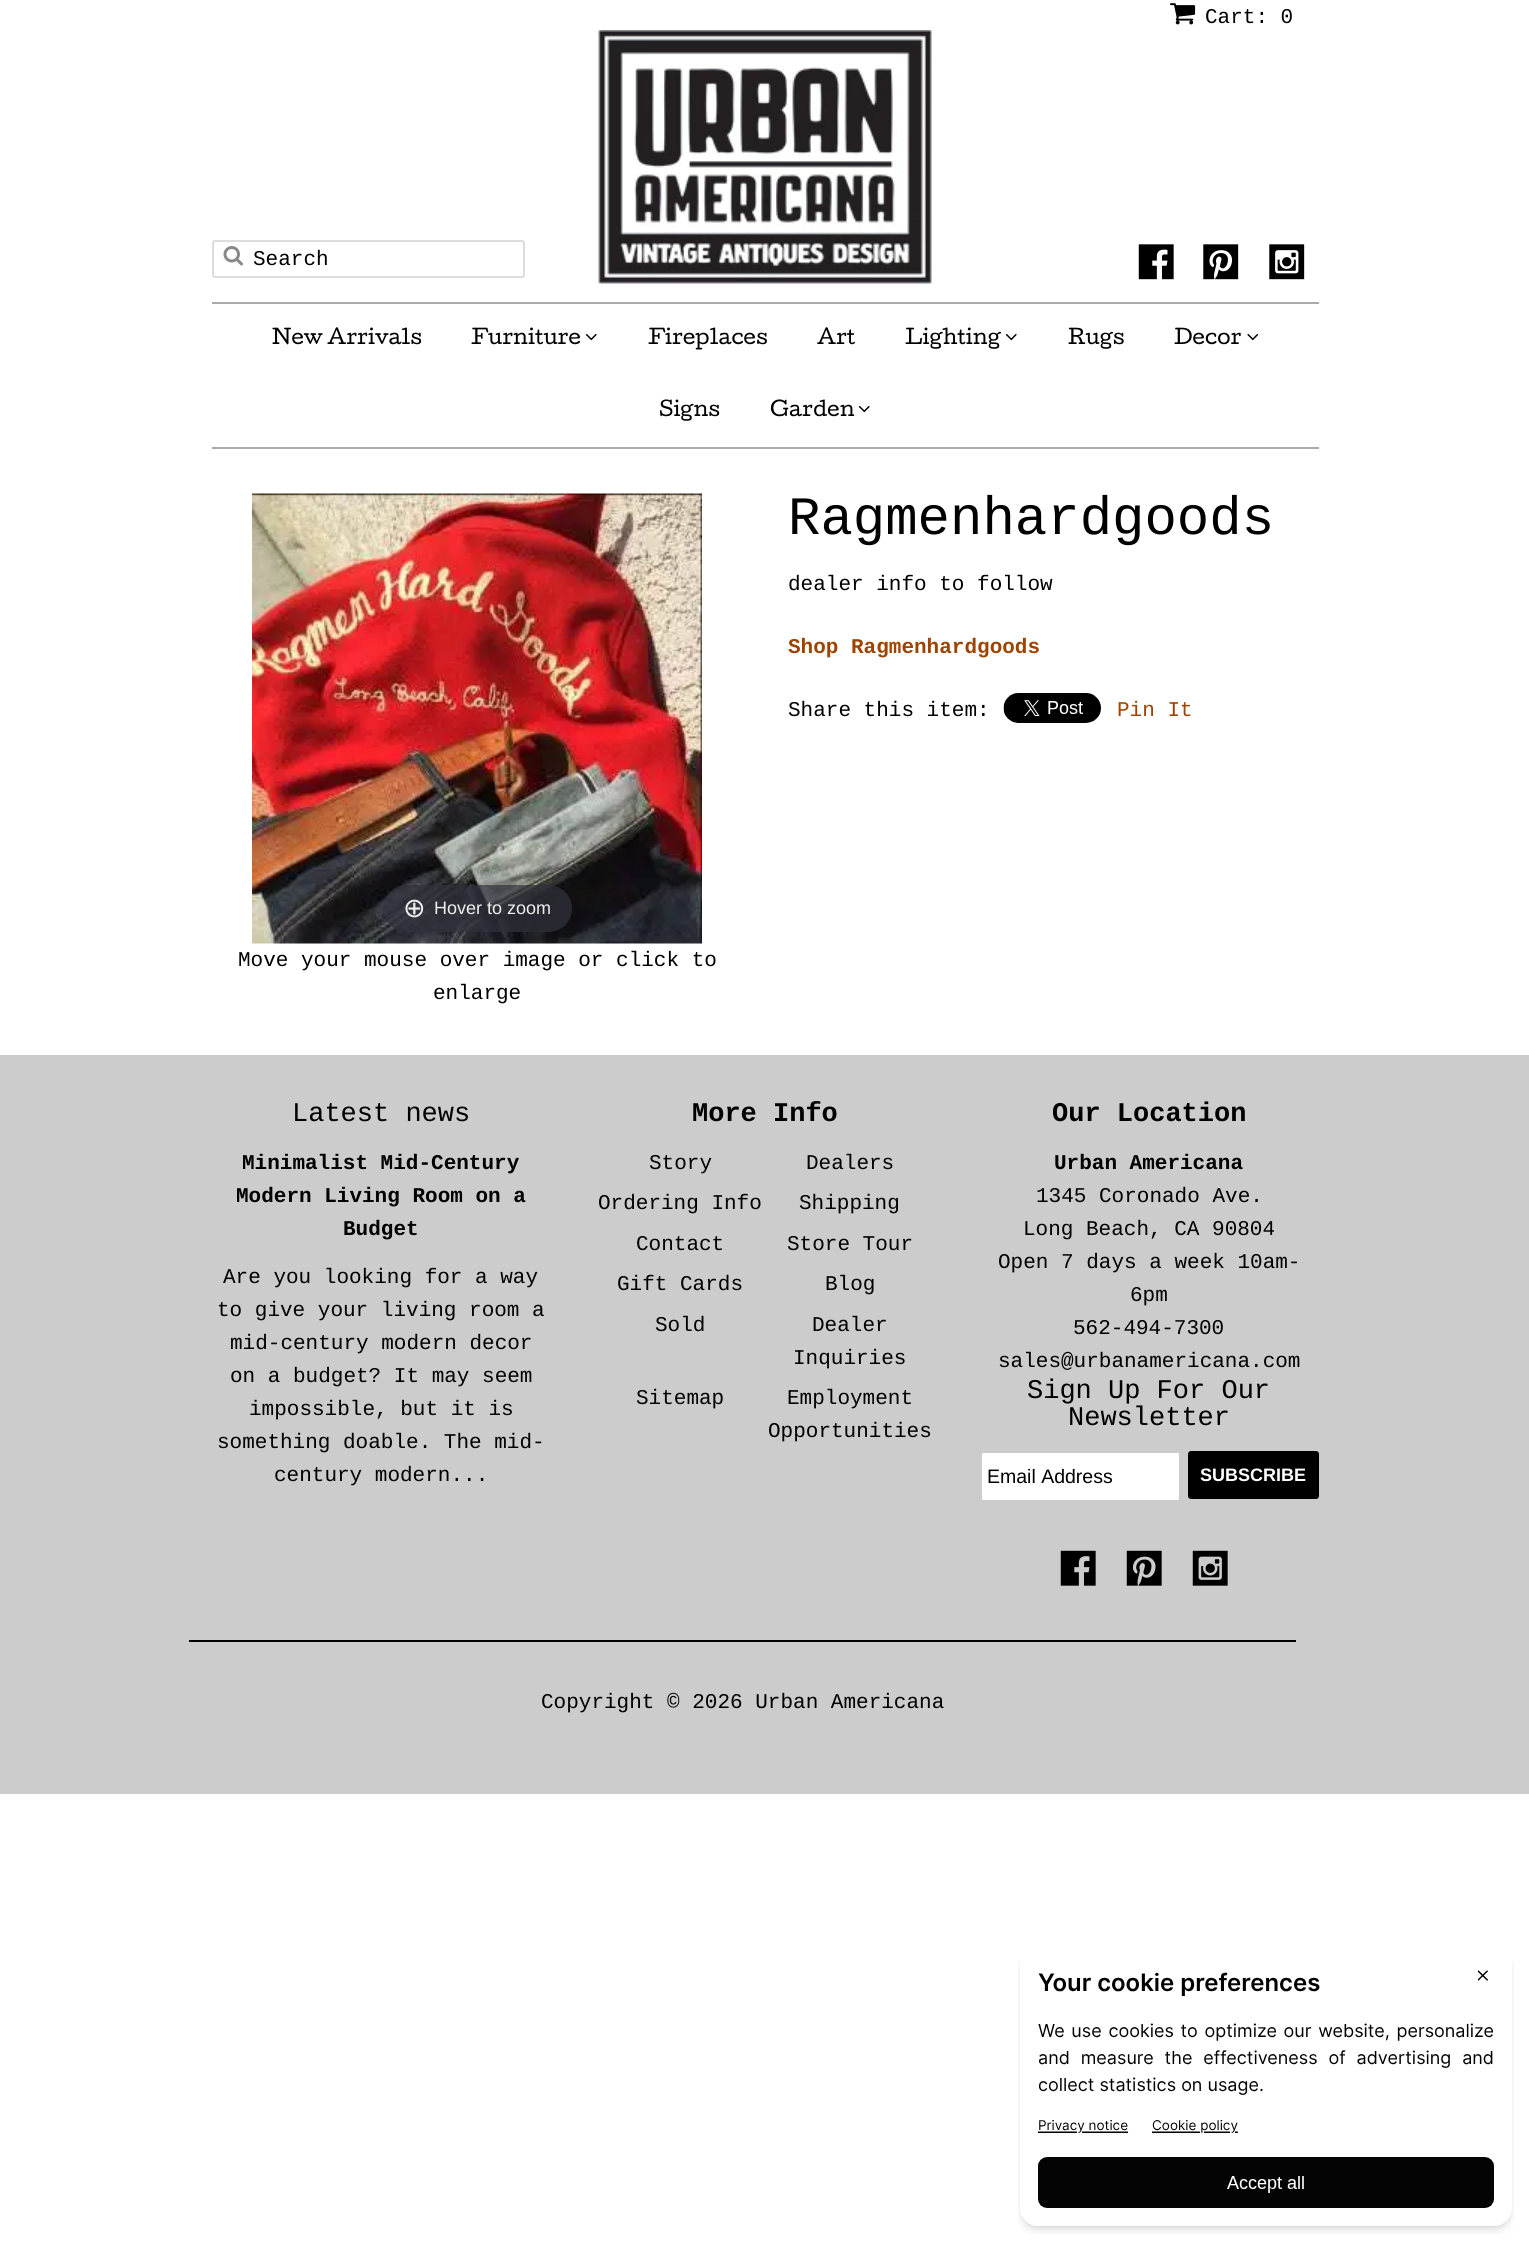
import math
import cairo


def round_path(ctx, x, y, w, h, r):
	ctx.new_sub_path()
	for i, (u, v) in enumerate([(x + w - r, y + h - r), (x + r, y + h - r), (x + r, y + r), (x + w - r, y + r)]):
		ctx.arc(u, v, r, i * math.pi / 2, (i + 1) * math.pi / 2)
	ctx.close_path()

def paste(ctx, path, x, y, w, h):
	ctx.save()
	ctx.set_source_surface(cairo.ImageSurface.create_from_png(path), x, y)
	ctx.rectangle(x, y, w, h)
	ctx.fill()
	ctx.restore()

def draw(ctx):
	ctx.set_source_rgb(1, 1, 1)
	ctx.paint()
	paste(ctx, 'media/1.png', 1170, 3, 26, 22)
	ctx.select_font_face('Liberation Mono')
	ctx.set_font_size(21)
	ctx.set_source_rgb(0, 0, 0)
	ctx.move_to(1205, 23)
	ctx.show_text('Cart: 0')
	round_path(ctx, 213, 241, 311, 36, 2)
	ctx.set_source_rgb(0.867, 0.867, 0.867)
	ctx.stroke()
	paste(ctx, 'media/2.png', 223, 246, 20, 20)
	ctx.set_source_rgb(0, 0, 0)
	ctx.move_to(253, 265)
	ctx.show_text('Search')
	paste(ctx, 'media/3.png', 598, 30, 334, 254)
	paste(ctx, 'media/4.png', 1138, 244, 36, 36)
	paste(ctx, 'media/5.png', 1203, 244, 36, 36)
	paste(ctx, 'media/6.png', 1269, 244, 36, 36)
	ctx.set_source_rgb(0.667, 0.667, 0.667)
	ctx.rectangle(212, 302, 1107, 2)
	ctx.fill()
	ctx.rectangle(212, 447, 1107, 2)
	ctx.fill()
	ctx.select_font_face('Cutive')
	ctx.set_font_size(19.5)
	ctx.set_source_rgb(0, 0, 0)
	ctx.move_to(272, 344)
	ctx.show_text('New Arrivals')
	ctx.move_to(471, 344)
	ctx.show_text('Furniture')
	paste(ctx, 'media/7.png', 585, 333, 12, 8)
	for x, y, s in [
		(648, 344, 'Fireplaces'),
		(817, 344, 'Art'),
		(905, 344, 'Lighting'),
	]:
		ctx.move_to(x, y)
		ctx.show_text(s)
	paste(ctx, 'media/7.png', 1005, 333, 12, 8)
	ctx.move_to(1068, 344)
	ctx.show_text('Rugs')
	ctx.move_to(1174, 344)
	ctx.show_text('Decor')
	paste(ctx, 'media/8.png', 1247, 333, 12, 8)
	ctx.move_to(659, 416)
	ctx.show_text('Signs')
	ctx.move_to(770, 416)
	ctx.show_text('Garden')
	paste(ctx, 'media/7.png', 858, 405, 12, 8)
	ctx.select_font_face('Liberation Mono')
	ctx.set_font_size(54)
	ctx.move_to(788, 534)
	ctx.show_text('Ragmenhardgoods')
	ctx.set_font_size(21)
	ctx.move_to(788, 590)
	ctx.show_text('dealer info to follow')
	ctx.select_font_face('Liberation Mono', cairo.FONT_SLANT_NORMAL, cairo.FONT_WEIGHT_BOLD)
	ctx.set_source_rgb(0.624, 0.267, 0)
	ctx.move_to(788, 653)
	ctx.show_text('Shop Ragmenhardgoods')
	ctx.select_font_face('Liberation Mono')
	ctx.set_source_rgb(0, 0, 0)
	ctx.move_to(788, 716)
	ctx.show_text('Share this item:')
	paste(ctx, 'media/9.png', 1003, 693, 98, 30)
	ctx.set_source_rgb(0.624, 0.267, 0)
	ctx.move_to(1117, 716)
	ctx.show_text('Pin It')
	paste(ctx, 'media/10.png', 252, 493, 450, 451)
	ctx.set_source_rgba(0.192, 0.2, 0.239, 0.7)
	round_path(ctx, 383, 885, 189, 47, 23.5)
	ctx.fill()
	ctx.select_font_face('DejaVu Sans')
	ctx.set_font_size(27)
	ctx.set_source_rgb(0.933, 0.933, 0.933)
	ctx.move_to(403, 917)
	ctx.show_text('⊕')
	ctx.select_font_face('Liberation Sans')
	ctx.set_font_size(18)
	ctx.move_to(434, 914)
	ctx.show_text('Hover to zoom')
	ctx.select_font_face('Liberation Mono')
	ctx.set_font_size(21)
	ctx.set_source_rgb(0, 0, 0)
	ctx.move_to(238, 966)
	ctx.show_text('Move your mouse over image or click to')
	ctx.move_to(433, 999)
	ctx.show_text('enlarge')
	ctx.set_source_rgb(0.8, 0.8, 0.8)
	ctx.rectangle(0, 1055, 1529, 739)
	ctx.fill()
	ctx.set_font_size(27)
	ctx.set_source_rgb(0, 0, 0)
	ctx.move_to(292, 1121)
	ctx.show_text('Latest news')
	ctx.select_font_face('Liberation Mono', cairo.FONT_SLANT_NORMAL, cairo.FONT_WEIGHT_BOLD)
	ctx.set_font_size(21)
	for x, y, s in [
		(242, 1169, 'Minimalist Mid-Century'),
		(236, 1202, 'Modern Living Room on a'),
		(343, 1235, 'Budget'),
	]:
		ctx.move_to(x, y)
		ctx.show_text(s)
	ctx.select_font_face('Liberation Mono')
	for x, y, s in [
		(223, 1283, 'Are you looking for a way'),
		(217, 1316, 'to give your living room a'),
		(230, 1349, 'mid-century modern decor'),
		(230, 1382, 'on a budget? It may seem'),
		(249, 1415, 'impossible, but it is'),
		(217, 1448, 'something doable. The mid-'),
		(274, 1481, 'century modern...'),
	]:
		ctx.move_to(x, y)
		ctx.show_text(s)
	ctx.select_font_face('Liberation Mono', cairo.FONT_SLANT_NORMAL, cairo.FONT_WEIGHT_BOLD)
	ctx.set_font_size(27)
	ctx.move_to(692, 1121)
	ctx.show_text('More Info')
	ctx.select_font_face('Liberation Mono')
	ctx.set_font_size(21)
	for x, y, s in [
		(649, 1169, 'Story'),
		(806, 1169, 'Dealers'),
		(598, 1209, 'Ordering Info'),
		(799, 1209, 'Shipping'),
		(636, 1250, 'Contact'),
		(787, 1250, 'Store Tour'),
		(617, 1290, 'Gift Cards'),
		(825, 1290, 'Blog'),
		(655, 1331, 'Sold'),
		(812, 1331, 'Dealer'),
		(793, 1364, 'Inquiries'),
		(636, 1404, 'Sitemap'),
		(787, 1404, 'Employment'),
		(768, 1437, 'Opportunities'),
	]:
		ctx.move_to(x, y)
		ctx.show_text(s)
	ctx.select_font_face('Liberation Mono', cairo.FONT_SLANT_NORMAL, cairo.FONT_WEIGHT_BOLD)
	ctx.set_font_size(27)
	ctx.move_to(1052, 1121)
	ctx.show_text('Our Location')
	ctx.set_font_size(21)
	ctx.move_to(1054, 1169)
	ctx.show_text('Urban Americana')
	ctx.select_font_face('Liberation Mono')
	for x, y, s in [
		(1036, 1202, '1345 Coronado Ave.'),
		(1023, 1235, 'Long Beach, CA 90804'),
		(998, 1268, 'Open 7 days a week 10am-'),
		(1130, 1301, '6pm'),
		(1073, 1334, '562-494-7300'),
		(998, 1367, 'sales@urbanamericana.com'),
	]:
		ctx.move_to(x, y)
		ctx.show_text(s)
	ctx.set_font_size(27)
	ctx.move_to(1027, 1398)
	ctx.show_text('Sign Up For Our')
	ctx.move_to(1068, 1425)
	ctx.show_text('Newsletter')
	ctx.set_source_rgb(1, 1, 1)
	round_path(ctx, 981, 1452, 199, 49, 2)
	ctx.fill_preserve()
	ctx.set_source_rgb(0.8, 0.8, 0.8)
	ctx.stroke()
	ctx.select_font_face('Liberation Sans')
	ctx.set_font_size(19.5)
	ctx.set_source_rgb(0, 0, 0)
	ctx.move_to(987, 1483)
	ctx.show_text('Email Address')
	round_path(ctx, 1188, 1451, 131, 48, 3)
	ctx.fill()
	ctx.select_font_face('Liberation Sans', cairo.FONT_SLANT_NORMAL, cairo.FONT_WEIGHT_BOLD)
	ctx.set_font_size(18)
	ctx.set_source_rgb(1, 1, 1)
	ctx.move_to(1200, 1481)
	ctx.show_text('SUBSCRIBE')
	paste(ctx, 'media/11.png', 1060, 1550, 36, 36)
	paste(ctx, 'media/12.png', 1126, 1550, 36, 36)
	paste(ctx, 'media/13.png', 1192, 1550, 36, 36)
	ctx.set_source_rgb(0, 0, 0)
	ctx.rectangle(189, 1640, 1107, 2)
	ctx.fill()
	ctx.select_font_face('Liberation Mono')
	ctx.set_font_size(21)
	ctx.move_to(541, 1708)
	ctx.show_text('Copyright © 2026 Urban Americana')
	paste(ctx, 'media/14.png', 1018, 1960, 496, 274)


surface = cairo.ImageSurface(cairo.FORMAT_RGB24, 1529, 2252)
ctx = cairo.Context(surface)
options = cairo.FontOptions()
options.set_hint_metrics(cairo.HINT_METRICS_OFF)
options.set_hint_style(cairo.HINT_STYLE_NONE)
ctx.set_font_options(options)
ctx.set_miter_limit(4)
draw(ctx)
surface.write_to_png('image.png')
